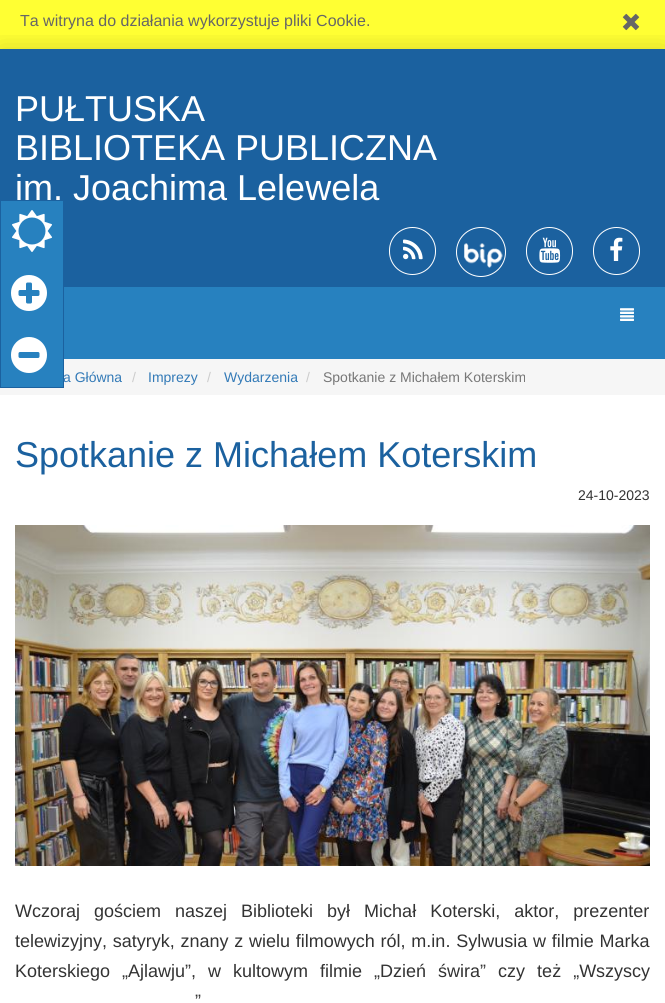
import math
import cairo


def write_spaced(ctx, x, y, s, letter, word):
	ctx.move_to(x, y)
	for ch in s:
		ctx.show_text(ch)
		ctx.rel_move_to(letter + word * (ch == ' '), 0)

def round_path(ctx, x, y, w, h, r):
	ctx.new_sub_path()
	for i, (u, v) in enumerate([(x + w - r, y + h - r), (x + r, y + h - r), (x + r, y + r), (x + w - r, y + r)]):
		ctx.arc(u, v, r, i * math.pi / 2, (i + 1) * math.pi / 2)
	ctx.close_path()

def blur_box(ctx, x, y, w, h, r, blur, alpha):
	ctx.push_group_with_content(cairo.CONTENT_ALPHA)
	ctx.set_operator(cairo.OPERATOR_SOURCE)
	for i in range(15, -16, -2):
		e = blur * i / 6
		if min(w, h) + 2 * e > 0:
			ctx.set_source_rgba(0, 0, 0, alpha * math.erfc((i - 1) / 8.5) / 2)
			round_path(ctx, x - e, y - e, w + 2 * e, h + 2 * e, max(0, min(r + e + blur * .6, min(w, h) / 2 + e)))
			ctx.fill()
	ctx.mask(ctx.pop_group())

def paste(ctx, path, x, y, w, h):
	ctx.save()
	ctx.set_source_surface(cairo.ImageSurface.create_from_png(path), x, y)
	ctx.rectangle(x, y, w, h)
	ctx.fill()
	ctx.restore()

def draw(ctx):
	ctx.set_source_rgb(1, 1, 1)
	ctx.paint()
	ctx.set_source_rgb(1, 1, 0.2)
	ctx.rectangle(0, 0, 665, 49)
	ctx.fill()
	ctx.save()
	ctx.rectangle(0, 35, 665, 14)
	ctx.clip()
	ctx.set_source_rgb(0, 0, 0)
	blur_box(ctx, 0, 49, 665, 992, 0, 12.5, 0.16)
	ctx.restore()
	ctx.select_font_face('Liberation Sans')
	ctx.set_font_size(16)
	ctx.set_source_rgb(0.4, 0.4, 0.4)
	ctx.move_to(20, 26)
	ctx.show_text('Ta witryna do działania wykorzystuje pliki Cookie.')
	paste(ctx, 'media/1.png', 622, 13, 18, 18)
	ctx.set_source_rgb(0.106, 0.38, 0.624)
	ctx.rectangle(0, 49, 665, 238)
	ctx.fill()
	ctx.set_font_size(36)
	ctx.set_source_rgb(1, 1, 1)
	for x, y, s in [
		(15, 121, 'PUŁTUSKA'),
		(15, 160, 'BIBLIOTEKA PUBLICZNA'),
		(15, 200, 'im. Joachima Lelewela'),
	]:
		ctx.move_to(x, y)
		ctx.show_text(s)
	round_path(ctx, 389.5, 227.5, 46, 47, 23)
	ctx.set_line_width(1)
	ctx.stroke()
	paste(ctx, 'media/2.png', 403, 239, 20, 21)
	paste(ctx, 'media/3.png', 464, 243, 39, 25)
	ctx.arc(481, 252, 24.5, 0, 2 * math.pi)
	ctx.stroke()
	round_path(ctx, 526.5, 227.5, 46, 47, 23)
	ctx.stroke()
	paste(ctx, 'media/4.png', 539, 237, 22, 26)
	round_path(ctx, 593.5, 227.5, 46, 47, 23)
	ctx.stroke()
	paste(ctx, 'media/5.png', 610, 237, 13, 24)
	ctx.set_source_rgb(0.961, 0.961, 0.961)
	ctx.rectangle(0, 359, 665, 36)
	ctx.fill()
	ctx.set_source_rgb(0.153, 0.506, 0.749)
	ctx.rectangle(0.5, 200.5, 63, 187)
	ctx.fill_preserve()
	ctx.set_source_rgb(0.106, 0.38, 0.624)
	ctx.stroke()
	paste(ctx, 'media/6.png', 12, 210, 40, 42)
	paste(ctx, 'media/7.png', 11, 275, 36, 36)
	paste(ctx, 'media/8.png', 11, 337, 36, 36)
	ctx.set_source_rgb(0.153, 0.506, 0.749)
	ctx.rectangle(64, 287, 601, 72)
	ctx.fill()
	paste(ctx, 'media/9.png', 620, 308, 14, 13)
	ctx.set_font_size(14)
	ctx.set_source_rgb(0.2, 0.478, 0.718)
	ctx.move_to(63, 382)
	ctx.show_text('a Główna')
	ctx.set_source_rgb(0.8, 0.8, 0.8)
	ctx.move_to(132, 382)
	ctx.show_text('/')
	ctx.set_source_rgb(0.2, 0.478, 0.718)
	ctx.move_to(148, 382)
	ctx.show_text('Imprezy')
	ctx.set_source_rgb(0.8, 0.8, 0.8)
	ctx.move_to(207, 382)
	ctx.show_text('/')
	ctx.set_source_rgb(0.2, 0.478, 0.718)
	ctx.move_to(224, 382)
	ctx.show_text('Wydarzenia')
	ctx.set_source_rgb(0.8, 0.8, 0.8)
	ctx.move_to(306, 382)
	ctx.show_text('/')
	ctx.set_source_rgb(0.467, 0.467, 0.467)
	ctx.move_to(323, 382)
	ctx.show_text('Spotkanie z Michałem Koterskim')
	ctx.set_font_size(36)
	ctx.set_source_rgb(0.106, 0.38, 0.624)
	ctx.move_to(15, 467)
	ctx.show_text('Spotkanie z Michałem Koterskim')
	ctx.set_font_size(14)
	ctx.set_source_rgb(0.2, 0.2, 0.2)
	ctx.move_to(578, 500)
	ctx.show_text('24-10-2023')
	paste(ctx, 'media/10.png', 15, 525, 635, 341)
	ctx.set_font_size(18)
	write_spaced(ctx, 15, 917, 'Wczoraj gościem naszej Biblioteki był Michał Koterski, aktor, prezenter', 0, 9)
	write_spaced(ctx, 15, 947, 'telewizyjny, satyryk, znany z wielu filmowych ról, m.in. Sylwusia w filmie Marka', 0, 0.75)
	write_spaced(ctx, 15, 977, 'Koterskiego „Ajlawju”, w kultowym filmie „Dzień świra” czy też „Wszyscy', 0, 7)
	write_spaced(ctx, 195, 1007, '”', 0, 4)


surface = cairo.ImageSurface(cairo.FORMAT_RGB24, 665, 1003)
ctx = cairo.Context(surface)
options = cairo.FontOptions()
options.set_hint_metrics(cairo.HINT_METRICS_OFF)
options.set_hint_style(cairo.HINT_STYLE_NONE)
ctx.set_font_options(options)
ctx.set_miter_limit(4)
draw(ctx)
surface.write_to_png('image.png')
